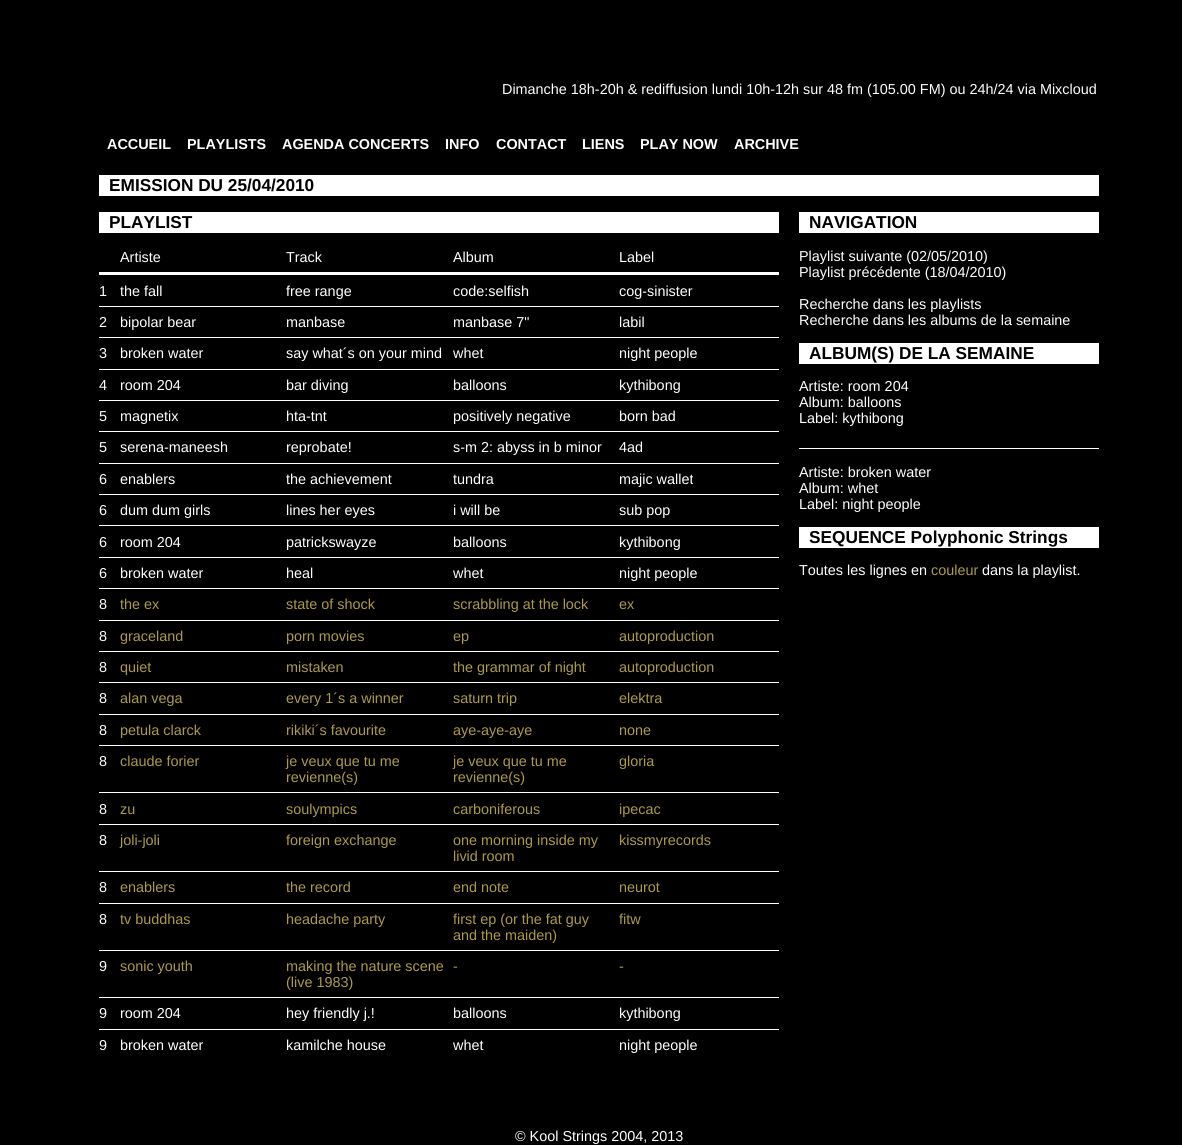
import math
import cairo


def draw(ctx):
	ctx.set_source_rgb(0, 0, 0)
	ctx.paint()
	ctx.select_font_face('Liberation Sans')
	ctx.set_font_size(14.4)
	ctx.set_source_rgb(1, 1, 1)
	ctx.move_to(502, 94)
	ctx.show_text('Dimanche 18h-20h & rediffusion lundi 10h-12h sur 48 fm (105.00 FM) ou 24h/24 via Mixcloud')
	ctx.select_font_face('Liberation Sans', cairo.FONT_SLANT_NORMAL, cairo.FONT_WEIGHT_BOLD)
	for x, y, s in [
		(107, 149, 'ACCUEIL'),
		(187, 149, 'PLAYLISTS'),
		(282, 149, 'AGENDA CONCERTS'),
		(445, 149, 'INFO'),
		(496, 149, 'CONTACT'),
		(582, 149, 'LIENS'),
		(640, 149, 'PLAY NOW'),
		(734, 149, 'ARCHIVE'),
	]:
		ctx.move_to(x, y)
		ctx.show_text(s)
	ctx.rectangle(99, 175, 1000, 21)
	ctx.fill()
	ctx.set_font_size(17.25)
	ctx.set_source_rgb(0, 0, 0)
	ctx.move_to(109, 191)
	ctx.show_text('EMISSION DU 25/04/2010')
	ctx.set_source_rgb(1, 1, 1)
	ctx.rectangle(99, 212, 680, 21)
	ctx.fill()
	ctx.set_source_rgb(0, 0, 0)
	ctx.move_to(109, 228)
	ctx.show_text('PLAYLIST')
	ctx.select_font_face('Liberation Sans')
	ctx.set_font_size(14.4)
	ctx.set_source_rgb(1, 1, 1)
	for x, y, s in [
		(120, 262, 'Artiste'),
		(286, 262, 'Track'),
		(453, 262, 'Album'),
		(619, 262, 'Label'),
	]:
		ctx.move_to(x, y)
		ctx.show_text(s)
	ctx.rectangle(99, 272, 680, 3)
	ctx.fill()
	for x, y, s in [
		(99, 296, '1'),
		(120, 296, 'the fall'),
		(286, 296, 'free range'),
		(453, 296, 'code:selfish'),
		(619, 296, 'cog-sinister'),
	]:
		ctx.move_to(x, y)
		ctx.show_text(s)
	ctx.rectangle(99, 306, 680, 1)
	ctx.fill()
	for x, y, s in [
		(99, 327, '2'),
		(120, 327, 'bipolar bear'),
		(286, 327, 'manbase'),
		(453, 327, 'manbase 7"'),
		(619, 327, 'labil'),
	]:
		ctx.move_to(x, y)
		ctx.show_text(s)
	ctx.rectangle(99, 337, 680, 1)
	ctx.fill()
	for x, y, s in [
		(99, 358, '3'),
		(120, 358, 'broken water'),
		(286, 358, 'say what´s on your mind'),
		(453, 358, 'whet'),
		(619, 358, 'night people'),
	]:
		ctx.move_to(x, y)
		ctx.show_text(s)
	ctx.rectangle(99, 369, 680, 1)
	ctx.fill()
	for x, y, s in [
		(99, 390, '4'),
		(120, 390, 'room 204'),
		(286, 390, 'bar diving'),
		(453, 390, 'balloons'),
		(619, 390, 'kythibong'),
	]:
		ctx.move_to(x, y)
		ctx.show_text(s)
	ctx.rectangle(99, 400, 680, 1)
	ctx.fill()
	for x, y, s in [
		(99, 421, '5'),
		(120, 421, 'magnetix'),
		(286, 421, 'hta-tnt'),
		(453, 421, 'positively negative'),
		(619, 421, 'born bad'),
	]:
		ctx.move_to(x, y)
		ctx.show_text(s)
	ctx.rectangle(99, 431, 680, 1)
	ctx.fill()
	for x, y, s in [
		(99, 452, '5'),
		(120, 452, 'serena-maneesh'),
		(286, 452, 'reprobate!'),
		(453, 452, 's-m 2: abyss in b minor'),
		(619, 452, '4ad'),
	]:
		ctx.move_to(x, y)
		ctx.show_text(s)
	ctx.rectangle(99, 463, 680, 1)
	ctx.fill()
	for x, y, s in [
		(99, 484, '6'),
		(120, 484, 'enablers'),
		(286, 484, 'the achievement'),
		(453, 484, 'tundra'),
		(619, 484, 'majic wallet'),
	]:
		ctx.move_to(x, y)
		ctx.show_text(s)
	ctx.rectangle(99, 494, 680, 1)
	ctx.fill()
	for x, y, s in [
		(99, 515, '6'),
		(120, 515, 'dum dum girls'),
		(286, 515, 'lines her eyes'),
		(453, 515, 'i will be'),
		(619, 515, 'sub pop'),
	]:
		ctx.move_to(x, y)
		ctx.show_text(s)
	ctx.rectangle(99, 525, 680, 1)
	ctx.fill()
	for x, y, s in [
		(99, 547, '6'),
		(120, 547, 'room 204'),
		(286, 547, 'patrickswayze'),
		(453, 547, 'balloons'),
		(619, 547, 'kythibong'),
	]:
		ctx.move_to(x, y)
		ctx.show_text(s)
	ctx.rectangle(99, 557, 680, 1)
	ctx.fill()
	for x, y, s in [
		(99, 578, '6'),
		(120, 578, 'broken water'),
		(286, 578, 'heal'),
		(453, 578, 'whet'),
		(619, 578, 'night people'),
	]:
		ctx.move_to(x, y)
		ctx.show_text(s)
	ctx.rectangle(99, 588, 680, 1)
	ctx.fill()
	ctx.move_to(99, 609)
	ctx.show_text('8')
	ctx.set_source_rgb(0.678, 0.604, 0.278)
	for x, y, s in [
		(120, 609, 'the ex'),
		(286, 609, 'state of shock'),
		(453, 609, 'scrabbling at the lock'),
		(619, 609, 'ex'),
	]:
		ctx.move_to(x, y)
		ctx.show_text(s)
	ctx.set_source_rgb(1, 1, 1)
	ctx.rectangle(99, 620, 680, 1)
	ctx.fill()
	ctx.move_to(99, 641)
	ctx.show_text('8')
	ctx.set_source_rgb(0.678, 0.604, 0.278)
	for x, y, s in [
		(120, 641, 'graceland'),
		(286, 641, 'porn movies'),
		(453, 641, 'ep'),
		(619, 641, 'autoproduction'),
	]:
		ctx.move_to(x, y)
		ctx.show_text(s)
	ctx.set_source_rgb(1, 1, 1)
	ctx.rectangle(99, 651, 680, 1)
	ctx.fill()
	ctx.move_to(99, 672)
	ctx.show_text('8')
	ctx.set_source_rgb(0.678, 0.604, 0.278)
	for x, y, s in [
		(120, 672, 'quiet'),
		(286, 672, 'mistaken'),
		(453, 672, 'the grammar of night'),
		(619, 672, 'autoproduction'),
	]:
		ctx.move_to(x, y)
		ctx.show_text(s)
	ctx.set_source_rgb(1, 1, 1)
	ctx.rectangle(99, 682, 680, 1)
	ctx.fill()
	ctx.move_to(99, 703)
	ctx.show_text('8')
	ctx.set_source_rgb(0.678, 0.604, 0.278)
	for x, y, s in [
		(120, 703, 'alan vega'),
		(286, 703, 'every 1´s a winner'),
		(453, 703, 'saturn trip'),
		(619, 703, 'elektra'),
	]:
		ctx.move_to(x, y)
		ctx.show_text(s)
	ctx.set_source_rgb(1, 1, 1)
	ctx.rectangle(99, 714, 680, 1)
	ctx.fill()
	ctx.move_to(99, 735)
	ctx.show_text('8')
	ctx.set_source_rgb(0.678, 0.604, 0.278)
	for x, y, s in [
		(120, 735, 'petula clarck'),
		(286, 735, 'rikiki´s favourite'),
		(453, 735, 'aye-aye-aye'),
		(619, 735, 'none'),
	]:
		ctx.move_to(x, y)
		ctx.show_text(s)
	ctx.set_source_rgb(1, 1, 1)
	ctx.rectangle(99, 745, 680, 1)
	ctx.fill()
	ctx.move_to(99, 766)
	ctx.show_text('8')
	ctx.set_source_rgb(0.678, 0.604, 0.278)
	for x, y, s in [
		(120, 766, 'claude forier'),
		(286, 766, 'je veux que tu me'),
		(286, 782, 'revienne(s)'),
		(453, 766, 'je veux que tu me'),
		(453, 782, 'revienne(s)'),
		(619, 766, 'gloria'),
	]:
		ctx.move_to(x, y)
		ctx.show_text(s)
	ctx.set_source_rgb(1, 1, 1)
	ctx.rectangle(99, 792, 680, 1)
	ctx.fill()
	ctx.move_to(99, 814)
	ctx.show_text('8')
	ctx.set_source_rgb(0.678, 0.604, 0.278)
	for x, y, s in [
		(120, 814, 'zu'),
		(286, 814, 'soulympics'),
		(453, 814, 'carboniferous'),
		(619, 814, 'ipecac'),
	]:
		ctx.move_to(x, y)
		ctx.show_text(s)
	ctx.set_source_rgb(1, 1, 1)
	ctx.rectangle(99, 824, 680, 1)
	ctx.fill()
	ctx.move_to(99, 845)
	ctx.show_text('8')
	ctx.set_source_rgb(0.678, 0.604, 0.278)
	for x, y, s in [
		(120, 845, 'joli-joli'),
		(286, 845, 'foreign exchange'),
		(453, 845, 'one morning inside my'),
		(453, 861, 'livid room'),
		(619, 845, 'kissmyrecords'),
	]:
		ctx.move_to(x, y)
		ctx.show_text(s)
	ctx.set_source_rgb(1, 1, 1)
	ctx.rectangle(99, 871, 680, 1)
	ctx.fill()
	ctx.move_to(99, 892)
	ctx.show_text('8')
	ctx.set_source_rgb(0.678, 0.604, 0.278)
	for x, y, s in [
		(120, 892, 'enablers'),
		(286, 892, 'the record'),
		(453, 892, 'end note'),
		(619, 892, 'neurot'),
	]:
		ctx.move_to(x, y)
		ctx.show_text(s)
	ctx.set_source_rgb(1, 1, 1)
	ctx.rectangle(99, 903, 680, 1)
	ctx.fill()
	ctx.move_to(99, 924)
	ctx.show_text('8')
	ctx.set_source_rgb(0.678, 0.604, 0.278)
	for x, y, s in [
		(120, 924, 'tv buddhas'),
		(286, 924, 'headache party'),
		(453, 924, 'first ep (or the fat guy'),
		(453, 940, 'and the maiden)'),
		(619, 924, 'fitw'),
	]:
		ctx.move_to(x, y)
		ctx.show_text(s)
	ctx.set_source_rgb(1, 1, 1)
	ctx.rectangle(99, 950, 680, 1)
	ctx.fill()
	ctx.move_to(99, 971)
	ctx.show_text('9')
	ctx.set_source_rgb(0.678, 0.604, 0.278)
	for x, y, s in [
		(120, 971, 'sonic youth'),
		(286, 971, 'making the nature scene'),
		(286, 987, '(live 1983)'),
		(453, 971, '-'),
		(619, 971, '-'),
	]:
		ctx.move_to(x, y)
		ctx.show_text(s)
	ctx.set_source_rgb(1, 1, 1)
	ctx.rectangle(99, 997, 680, 1)
	ctx.fill()
	for x, y, s in [
		(99, 1018, '9'),
		(120, 1018, 'room 204'),
		(286, 1018, 'hey friendly j.!'),
		(453, 1018, 'balloons'),
		(619, 1018, 'kythibong'),
	]:
		ctx.move_to(x, y)
		ctx.show_text(s)
	ctx.rectangle(99, 1029, 680, 1)
	ctx.fill()
	for x, y, s in [
		(99, 1050, '9'),
		(120, 1050, 'broken water'),
		(286, 1050, 'kamilche house'),
		(453, 1050, 'whet'),
		(619, 1050, 'night people'),
	]:
		ctx.move_to(x, y)
		ctx.show_text(s)
	ctx.rectangle(799, 212, 300, 21)
	ctx.fill()
	ctx.select_font_face('Liberation Sans', cairo.FONT_SLANT_NORMAL, cairo.FONT_WEIGHT_BOLD)
	ctx.set_font_size(17.25)
	ctx.set_source_rgb(0, 0, 0)
	ctx.move_to(809, 228)
	ctx.show_text('NAVIGATION')
	ctx.select_font_face('Liberation Sans')
	ctx.set_font_size(14.4)
	ctx.set_source_rgb(1, 1, 1)
	for x, y, s in [
		(799, 261, 'Playlist suivante (02/05/2010)'),
		(799, 277, 'Playlist précédente (18/04/2010)'),
		(799, 309, 'Recherche dans les playlists'),
		(799, 325, 'Recherche dans les albums de la semaine'),
	]:
		ctx.move_to(x, y)
		ctx.show_text(s)
	ctx.rectangle(799, 343, 300, 21)
	ctx.fill()
	ctx.select_font_face('Liberation Sans', cairo.FONT_SLANT_NORMAL, cairo.FONT_WEIGHT_BOLD)
	ctx.set_font_size(17.25)
	ctx.set_source_rgb(0, 0, 0)
	ctx.move_to(809, 359)
	ctx.show_text('ALBUM(S) DE LA SEMAINE')
	ctx.select_font_face('Liberation Sans')
	ctx.set_font_size(14.4)
	ctx.set_source_rgb(1, 1, 1)
	for x, y, s in [
		(799, 391, 'Artiste: room 204'),
		(799, 407, 'Album: balloons'),
		(799, 423, 'Label: kythibong'),
	]:
		ctx.move_to(x, y)
		ctx.show_text(s)
	ctx.rectangle(799, 448, 300, 1)
	ctx.fill()
	for x, y, s in [
		(799, 477, 'Artiste: broken water'),
		(799, 493, 'Album: whet'),
		(799, 509, 'Label: night people'),
	]:
		ctx.move_to(x, y)
		ctx.show_text(s)
	ctx.rectangle(799, 527, 300, 21)
	ctx.fill()
	ctx.select_font_face('Liberation Sans', cairo.FONT_SLANT_NORMAL, cairo.FONT_WEIGHT_BOLD)
	ctx.set_font_size(17.25)
	ctx.set_source_rgb(0, 0, 0)
	ctx.move_to(809, 543)
	ctx.show_text('SEQUENCE Polyphonic Strings')
	ctx.select_font_face('Liberation Sans')
	ctx.set_font_size(14.4)
	ctx.set_source_rgb(1, 1, 1)
	ctx.move_to(799, 575)
	ctx.show_text('Toutes les lignes en')
	ctx.set_source_rgb(0.678, 0.604, 0.278)
	ctx.move_to(931, 575)
	ctx.show_text('couleur')
	ctx.set_source_rgb(1, 1, 1)
	ctx.move_to(982, 575)
	ctx.show_text('dans la playlist.')
	ctx.move_to(515, 1141)
	ctx.show_text('© Kool Strings 2004, 2013')


surface = cairo.ImageSurface(cairo.FORMAT_RGB24, 1182, 1145)
ctx = cairo.Context(surface)
options = cairo.FontOptions()
options.set_hint_metrics(cairo.HINT_METRICS_OFF)
options.set_hint_style(cairo.HINT_STYLE_NONE)
ctx.set_font_options(options)
ctx.set_miter_limit(4)
draw(ctx)
surface.write_to_png('image.png')
